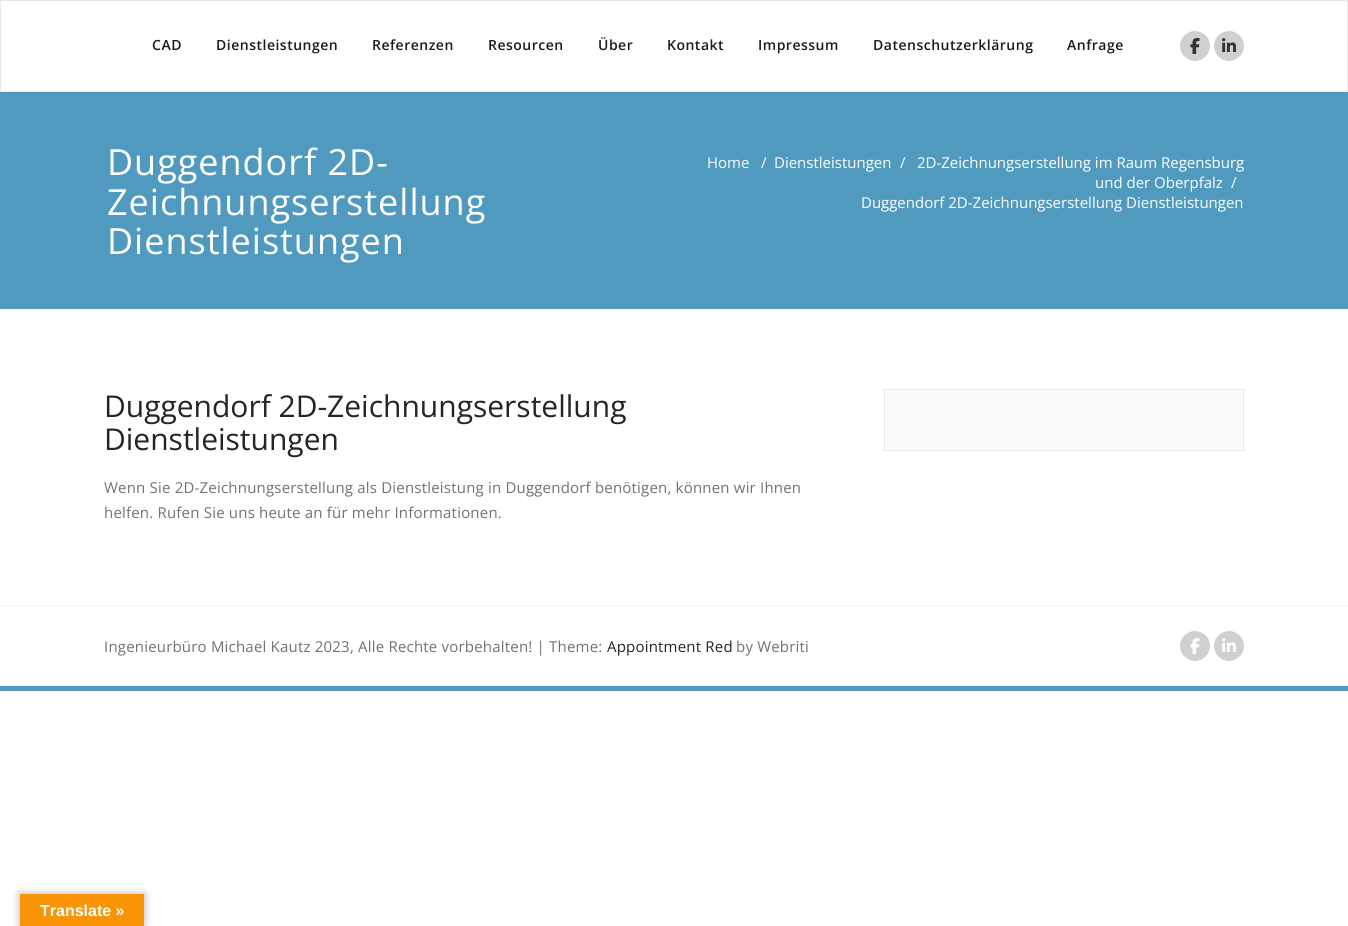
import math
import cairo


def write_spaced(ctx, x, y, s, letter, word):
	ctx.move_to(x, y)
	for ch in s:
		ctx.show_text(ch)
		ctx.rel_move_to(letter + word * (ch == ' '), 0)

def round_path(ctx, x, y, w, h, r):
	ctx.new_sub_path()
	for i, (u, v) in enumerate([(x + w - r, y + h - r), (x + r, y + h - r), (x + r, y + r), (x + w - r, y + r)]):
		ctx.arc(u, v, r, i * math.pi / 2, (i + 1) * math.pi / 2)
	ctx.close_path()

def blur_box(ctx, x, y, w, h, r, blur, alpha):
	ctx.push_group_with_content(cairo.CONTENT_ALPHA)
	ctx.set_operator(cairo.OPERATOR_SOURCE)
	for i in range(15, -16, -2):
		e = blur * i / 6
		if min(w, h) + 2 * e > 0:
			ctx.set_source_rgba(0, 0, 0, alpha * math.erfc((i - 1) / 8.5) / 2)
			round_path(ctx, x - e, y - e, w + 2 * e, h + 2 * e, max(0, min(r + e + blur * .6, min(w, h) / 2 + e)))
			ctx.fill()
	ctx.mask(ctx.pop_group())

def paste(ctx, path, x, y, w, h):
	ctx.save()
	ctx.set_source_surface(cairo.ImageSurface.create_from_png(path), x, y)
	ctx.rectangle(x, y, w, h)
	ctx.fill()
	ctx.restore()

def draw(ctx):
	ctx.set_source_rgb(1, 1, 1)
	ctx.paint()
	ctx.rectangle(0.5, 0.5, 1347, 91)
	ctx.set_source_rgb(0.906, 0.906, 0.906)
	ctx.set_line_width(1)
	ctx.stroke()
	ctx.select_font_face('Open Sans SemiBold')
	ctx.set_font_size(14)
	ctx.set_source_rgb(0.106, 0.106, 0.106)
	for x, y, s in [
		(152, 50, 'CAD'),
		(216, 50, 'Dienstleistungen'),
		(372, 50, 'Referenzen'),
		(488, 50, 'Resourcen'),
		(598, 50, 'Über'),
		(667, 50, 'Kontakt'),
		(758, 50, 'Impressum'),
		(873, 50, 'Datenschutzerklärung'),
		(1067, 50, 'Anfrage'),
	]:
		write_spaced(ctx, x, y, s, 0.5, 0)
	ctx.set_source_rgb(0.816, 0.816, 0.816)
	ctx.new_path()
	ctx.arc(1195, 46, 15, 0, 2 * math.pi)
	ctx.fill()
	paste(ctx, 'media/1.png', 1190, 38, 10, 16)
	ctx.arc(1229, 46, 15, 0, 2 * math.pi)
	ctx.fill()
	paste(ctx, 'media/2.png', 1222, 38, 14, 14)
	ctx.set_source_rgb(0.314, 0.604, 0.749)
	ctx.rectangle(0, 92, 1348, 217)
	ctx.fill()
	ctx.select_font_face('Open Sans')
	ctx.set_font_size(36)
	ctx.set_source_rgb(1, 1, 1)
	for x, y, s in [
		(107, 175, 'Duggendorf 2D-'),
		(107, 215, 'Zeichnungserstellung'),
		(107, 254, 'Dienstleistungen'),
	]:
		write_spaced(ctx, x, y, s, 1, 0)
	ctx.set_font_size(15)
	for x, y, s in [
		(707, 168, 'Home'),
		(761, 168, '/'),
		(774, 168, 'Dienstleistungen'),
		(900, 168, '/'),
		(917, 168, '2D-Zeichnungserstellung im Raum Regensburg'),
		(1095, 188, 'und der Oberpfalz'),
		(1231, 188, '/'),
		(861, 208, 'Duggendorf 2D-Zeichnungserstellung Dienstleistungen'),
	]:
		ctx.move_to(x, y)
		ctx.show_text(s)
	ctx.set_font_size(30)
	ctx.set_source_rgb(0.141, 0.145, 0.149)
	ctx.move_to(104, 417)
	ctx.show_text('Duggendorf 2D-Zeichnungserstellung')
	ctx.move_to(104, 450)
	ctx.show_text('Dienstleistungen')
	ctx.set_font_size(15)
	ctx.set_source_rgb(0.447, 0.447, 0.447)
	write_spaced(ctx, 104, 493, 'Wenn Sie 2D-Zeichnungserstellung als Dienstleistung in Duggendorf benötigen, können wir Ihnen', 0.2, 0)
	write_spaced(ctx, 104, 518, 'helfen. Rufen Sie uns heute an für mehr Informationen.', 0.2, 0)
	ctx.set_source_rgb(0.984, 0.984, 0.984)
	ctx.rectangle(884.5, 389.5, 359, 61)
	ctx.fill_preserve()
	ctx.set_source_rgb(0.914, 0.914, 0.914)
	ctx.stroke()
	ctx.set_source_rgb(0.957, 0.957, 0.957)
	ctx.rectangle(0, 605, 1348, 1)
	ctx.fill()
	ctx.set_source_rgb(0.314, 0.604, 0.749)
	ctx.rectangle(0, 686, 1348, 5)
	ctx.fill()
	ctx.set_source_rgb(0.447, 0.447, 0.447)
	write_spaced(ctx, 104, 652, 'Ingenieurbüro Michael Kautz 2023, Alle Rechte vorbehalten! | Theme:', 0.2, 0)
	ctx.set_source_rgb(0.141, 0.145, 0.149)
	write_spaced(ctx, 607, 652, 'Appointment Red', 0.2, 0)
	ctx.set_source_rgb(0.447, 0.447, 0.447)
	write_spaced(ctx, 736, 652, 'by Webriti', 0.2, 0)
	ctx.set_source_rgb(0.816, 0.816, 0.816)
	ctx.new_path()
	ctx.arc(1195, 646, 15, 0, 2 * math.pi)
	ctx.fill()
	paste(ctx, 'media/3.png', 1190, 638, 10, 16)
	ctx.arc(1229, 646, 15, 0, 2 * math.pi)
	ctx.fill()
	paste(ctx, 'media/4.png', 1222, 638, 14, 14)
	ctx.set_source_rgb(0, 0, 0)
	blur_box(ctx, 20, 894, 124, 32, 0, 4.5, 0.3)
	ctx.set_source_rgb(0.973, 0.58, 0.024)
	ctx.rectangle(20, 894, 124, 32)
	ctx.fill()
	ctx.select_font_face('Liberation Sans', cairo.FONT_SLANT_NORMAL, cairo.FONT_WEIGHT_BOLD)
	ctx.set_font_size(16)
	ctx.set_source_rgb(1, 1, 1)
	ctx.move_to(40, 916)
	ctx.show_text('Translate »')


surface = cairo.ImageSurface(cairo.FORMAT_RGB24, 1348, 926)
ctx = cairo.Context(surface)
options = cairo.FontOptions()
options.set_hint_metrics(cairo.HINT_METRICS_OFF)
options.set_hint_style(cairo.HINT_STYLE_NONE)
ctx.set_font_options(options)
ctx.set_miter_limit(4)
draw(ctx)
surface.write_to_png('image.png')
